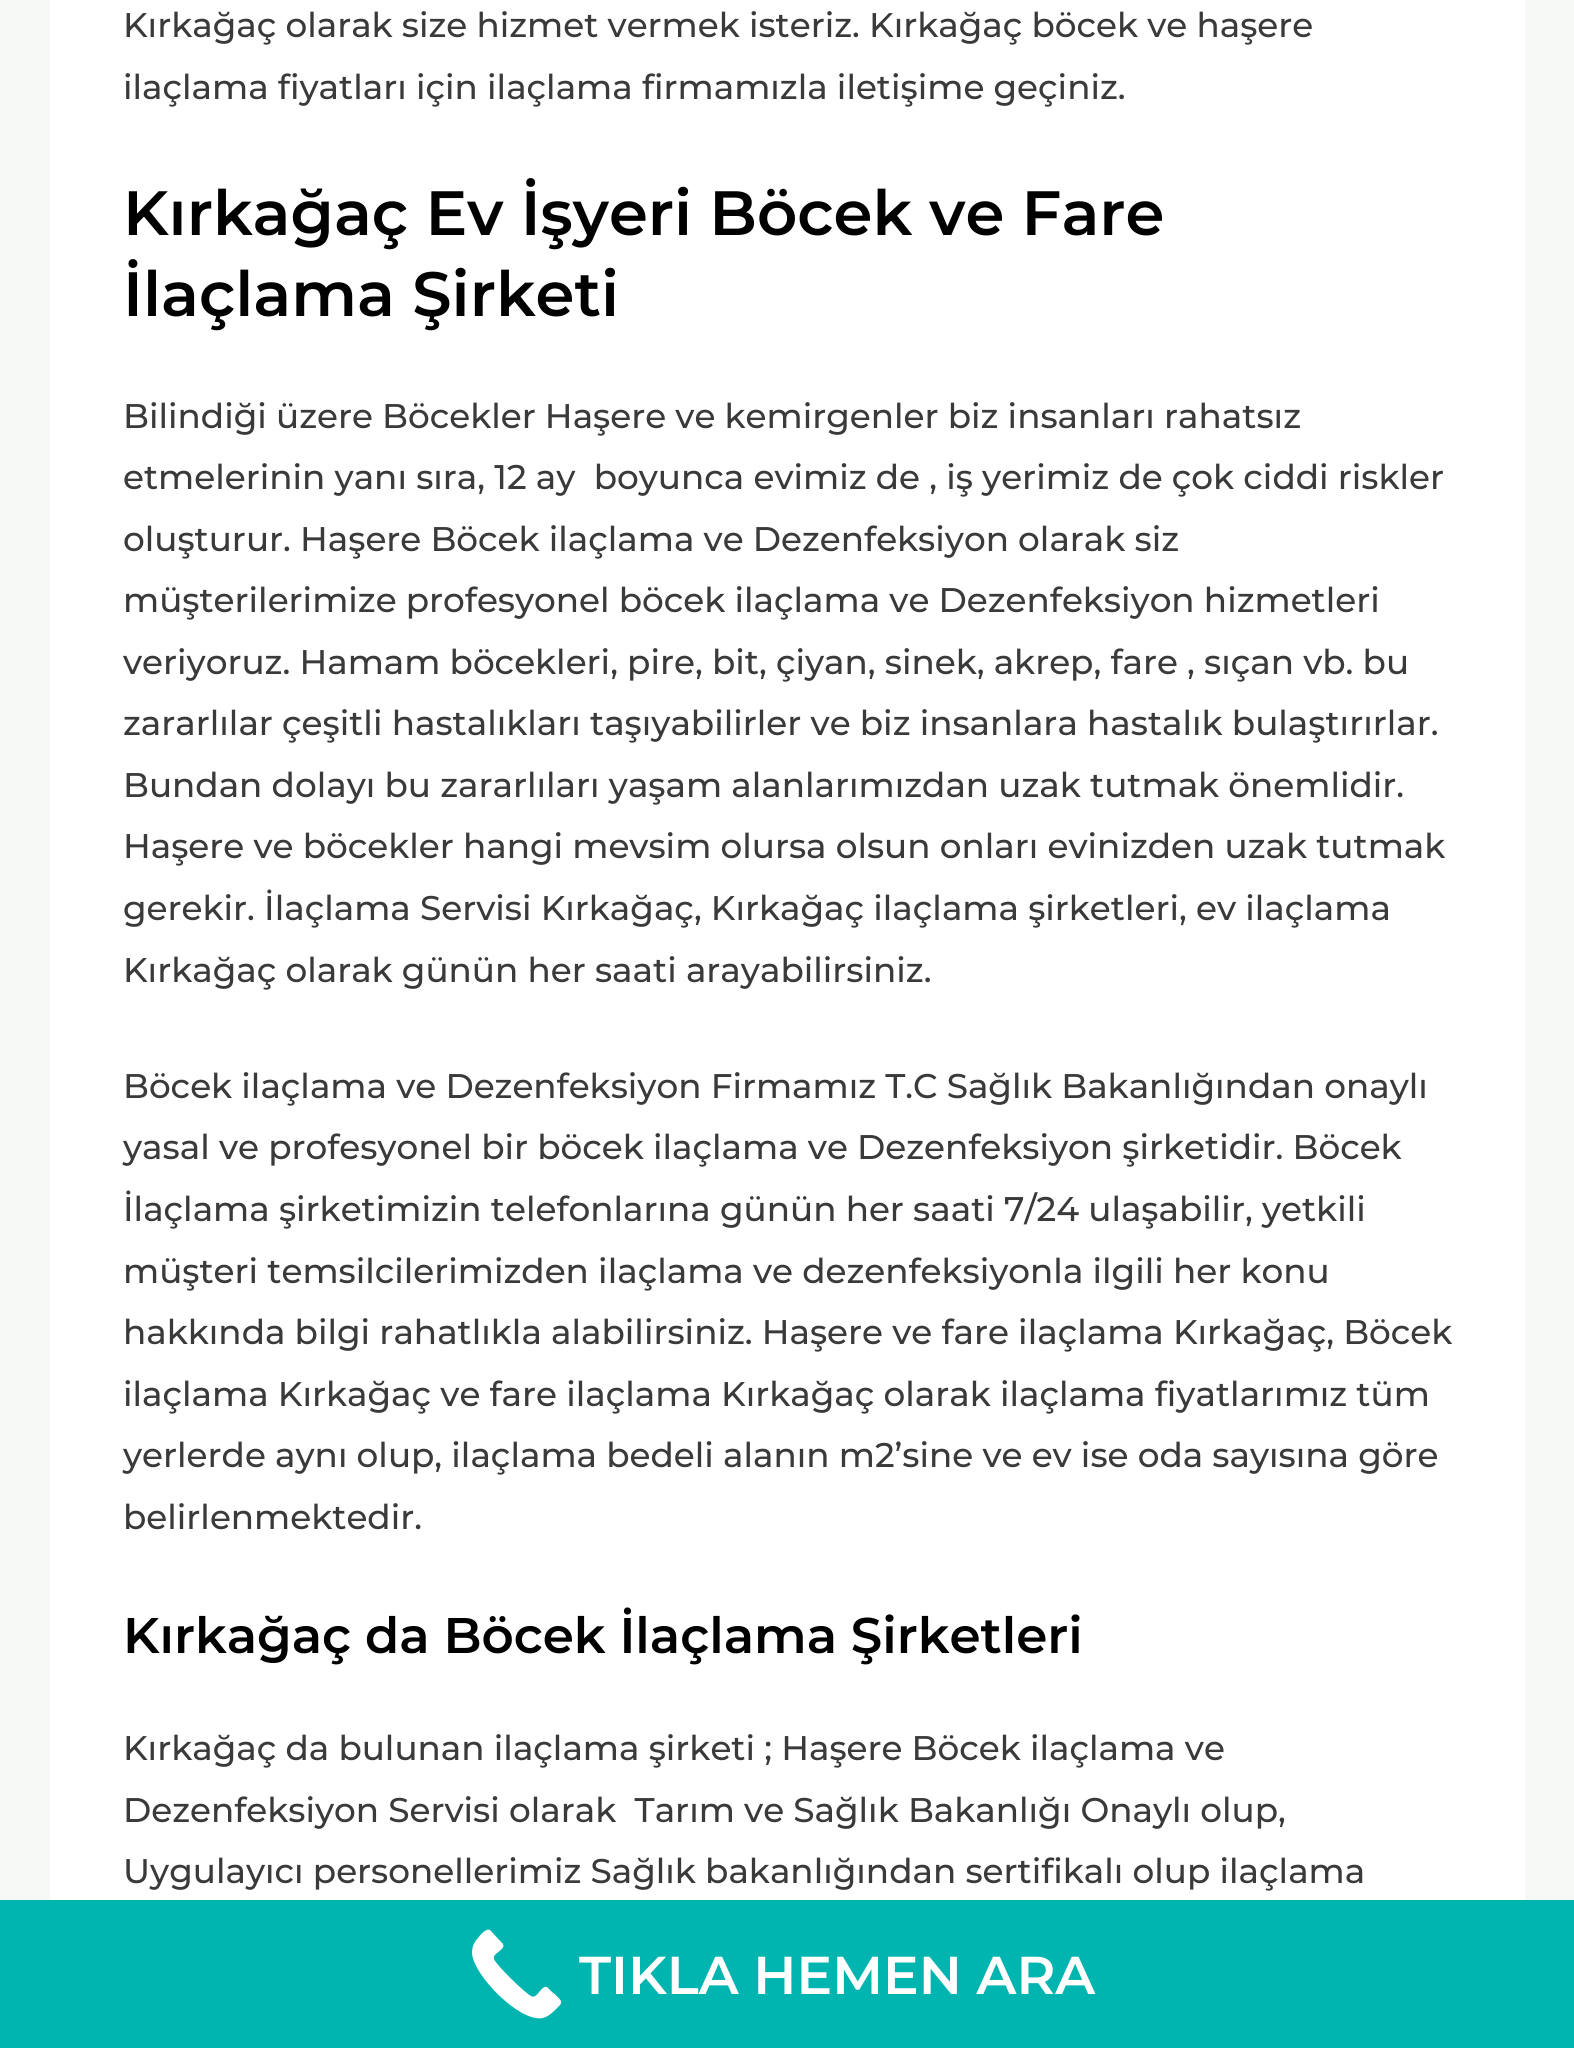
import math
import cairo


def draw(ctx):
	ctx.set_source_rgb(0.965, 0.976, 0.965)
	ctx.paint()
	ctx.set_source_rgb(1, 1, 1)
	ctx.rectangle(50, 0, 1475, 1900)
	ctx.fill()
	ctx.select_font_face('Montserrat Medium')
	ctx.set_font_size(34.2)
	ctx.set_source_rgb(0.227, 0.227, 0.227)
	ctx.move_to(123, 37)
	ctx.show_text('Kırkağaç olarak size hizmet vermek isteriz. Kırkağaç böcek ve haşere')
	ctx.move_to(123, 99)
	ctx.show_text('ilaçlama fiyatları için ilaçlama firmamızla iletişime geçiniz.')
	ctx.select_font_face('Montserrat SemiBold')
	ctx.set_font_size(62.5)
	ctx.set_source_rgb(0, 0, 0)
	ctx.move_to(123, 235)
	ctx.show_text('Kırkağaç Ev İşyeri Böcek ve Fare')
	ctx.move_to(123, 316)
	ctx.show_text('İlaçlama Şirketi')
	ctx.select_font_face('Montserrat Medium')
	ctx.set_font_size(34.2)
	ctx.set_source_rgb(0.227, 0.227, 0.227)
	for x, y, s in [
		(123, 428, 'Bilindiği üzere Böcekler Haşere ve kemirgenler biz insanları rahatsız'),
		(123, 489, 'etmelerinin yanı sıra, 12 ay  boyunca evimiz de , iş yerimiz de çok ciddi riskler'),
		(123, 551, 'oluşturur. Haşere Böcek ilaçlama ve Dezenfeksiyon olarak siz'),
		(123, 612, 'müşterilerimize profesyonel böcek ilaçlama ve Dezenfeksiyon hizmetleri'),
		(123, 674, 'veriyoruz. Hamam böcekleri, pire, bit, çiyan, sinek, akrep, fare , sıçan vb. bu'),
		(123, 735, 'zararlılar çeşitli hastalıkları taşıyabilirler ve biz insanlara hastalık bulaştırırlar.'),
		(123, 797, 'Bundan dolayı bu zararlıları yaşam alanlarımızdan uzak tutmak önemlidir.'),
		(123, 858, 'Haşere ve böcekler hangi mevsim olursa olsun onları evinizden uzak tutmak'),
		(123, 920, 'gerekir. İlaçlama Servisi Kırkağaç, Kırkağaç ilaçlama şirketleri, ev ilaçlama'),
		(123, 982, 'Kırkağaç olarak günün her saati arayabilirsiniz.'),
		(123, 1098, 'Böcek ilaçlama ve Dezenfeksiyon Firmamız T.C Sağlık Bakanlığından onaylı'),
		(123, 1159, 'yasal ve profesyonel bir böcek ilaçlama ve Dezenfeksiyon şirketidir. Böcek'),
		(123, 1221, 'İlaçlama şirketimizin telefonlarına günün her saati 7/24 ulaşabilir, yetkili'),
		(123, 1283, 'müşteri temsilcilerimizden ilaçlama ve dezenfeksiyonla ilgili her konu'),
		(123, 1344, 'hakkında bilgi rahatlıkla alabilirsiniz. Haşere ve fare ilaçlama Kırkağaç, Böcek'),
		(123, 1406, 'ilaçlama Kırkağaç ve fare ilaçlama Kırkağaç olarak ilaçlama fiyatlarımız tüm'),
		(123, 1467, 'yerlerde aynı olup, ilaçlama bedeli alanın m2’sine ve ev ise oda sayısına göre'),
		(123, 1529, 'belirlenmektedir.'),
	]:
		ctx.move_to(x, y)
		ctx.show_text(s)
	ctx.select_font_face('Montserrat SemiBold')
	ctx.set_font_size(50)
	ctx.set_source_rgb(0, 0, 0)
	ctx.move_to(123, 1653)
	ctx.show_text('Kırkağaç da Böcek İlaçlama Şirketleri')
	ctx.select_font_face('Montserrat Medium')
	ctx.set_font_size(34.2)
	ctx.set_source_rgb(0.227, 0.227, 0.227)
	for x, y, s in [
		(123, 1760, 'Kırkağaç da bulunan ilaçlama şirketi ; Haşere Böcek ilaçlama ve'),
		(123, 1822, 'Dezenfeksiyon Servisi olarak  Tarım ve Sağlık Bakanlığı Onaylı olup,'),
		(123, 1883, 'Uygulayıcı personellerimiz Sağlık bakanlığından sertifikalı olup ilaçlama'),
	]:
		ctx.move_to(x, y)
		ctx.show_text(s)
	ctx.set_source_rgb(0, 0.71, 0.686)
	ctx.rectangle(0, 1900, 1574, 148)
	ctx.fill()
	ctx.set_source_rgb(1, 1, 1)
	ctx.new_path()
	ctx.move_to(560, 2005)
	ctx.curve_to(555, 2010, 550, 2016, 543, 2018)
	ctx.curve_to(520, 2023, 473, 1975, 472, 1953)
	ctx.curve_to(472, 1947, 474, 1942, 478, 1938)
	ctx.curve_to(480, 1935, 486, 1928, 490, 1930)
	ctx.line_to(503, 1944)
	ctx.curve_to(506, 1950, 492, 1953, 494, 1959)
	ctx.curve_to(496, 1965, 525, 1993, 531, 1996)
	ctx.curve_to(537, 2000, 541, 1985, 547, 1987)
	ctx.line_to(552, 1992)
	ctx.curve_to(555, 1994, 560, 1999, 561, 2001)
	ctx.curve_to(561, 2003, 561, 2004, 560, 2005)
	ctx.close_path()
	ctx.fill()
	ctx.select_font_face('Montserrat SemiBold')
	ctx.set_font_size(53.25)
	ctx.move_to(579, 1994)
	ctx.show_text('TIKLA HEMEN ARA')


surface = cairo.ImageSurface(cairo.FORMAT_RGB24, 1574, 2048)
ctx = cairo.Context(surface)
options = cairo.FontOptions()
options.set_hint_metrics(cairo.HINT_METRICS_OFF)
options.set_hint_style(cairo.HINT_STYLE_NONE)
ctx.set_font_options(options)
ctx.set_miter_limit(4)
draw(ctx)
surface.write_to_png('image.png')
